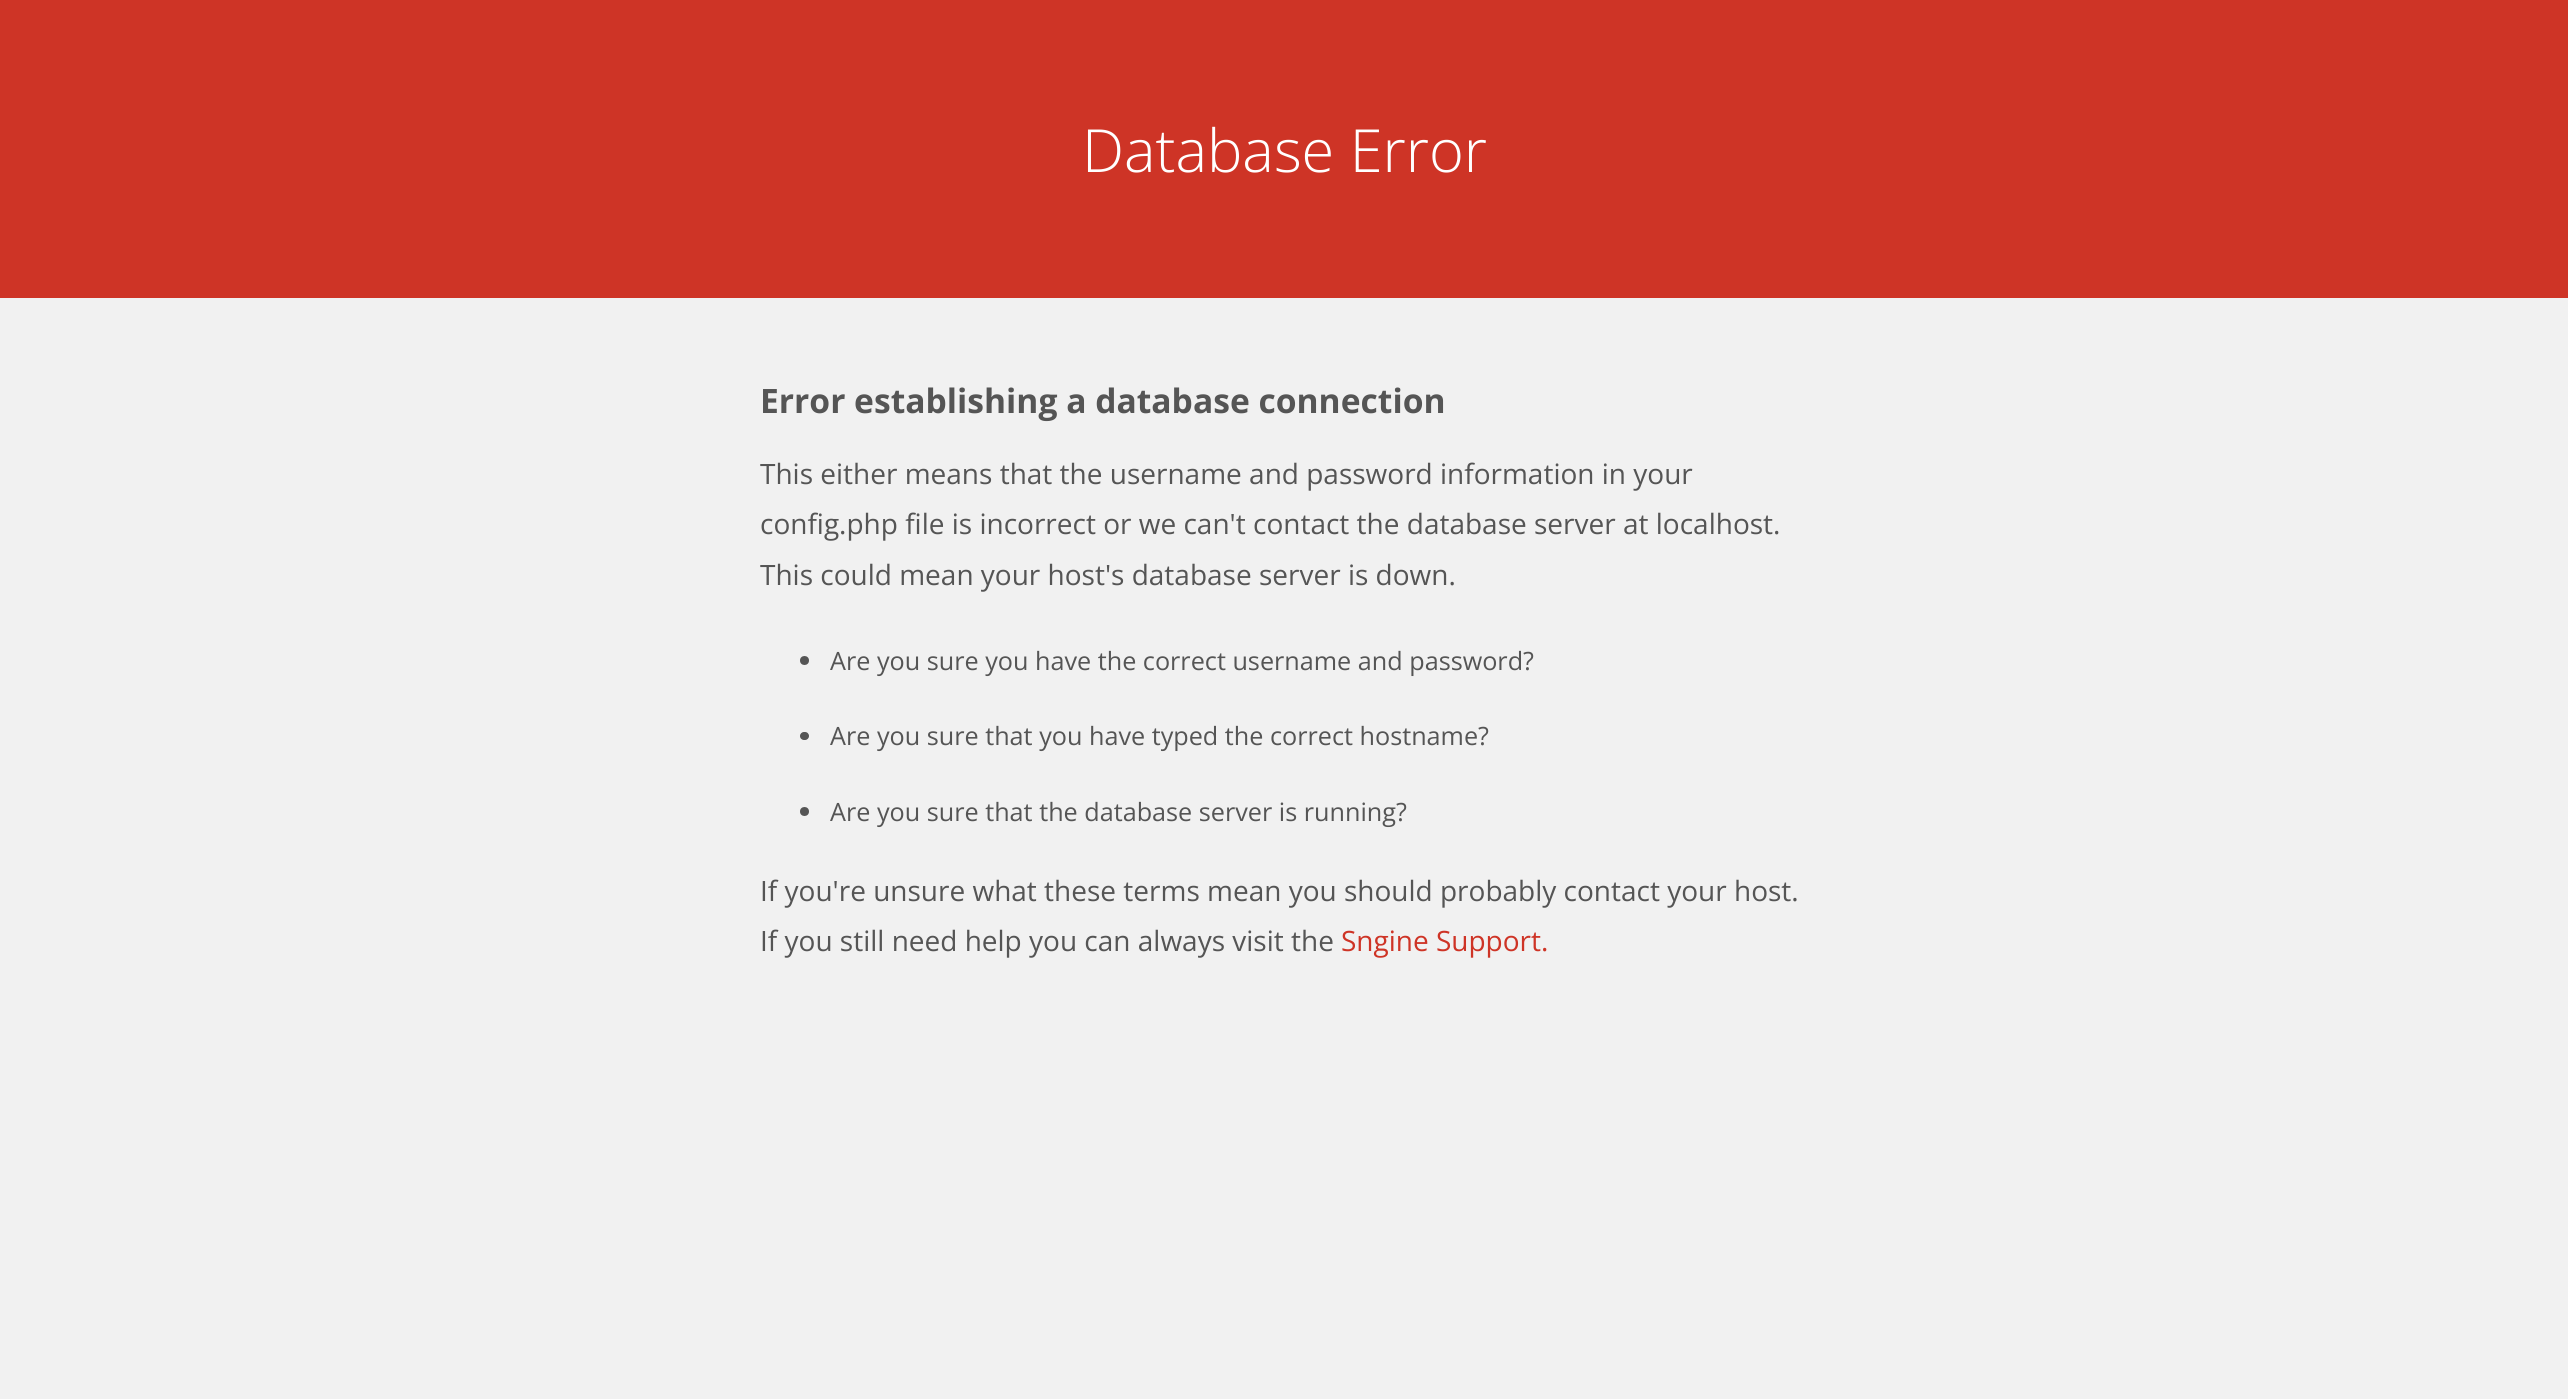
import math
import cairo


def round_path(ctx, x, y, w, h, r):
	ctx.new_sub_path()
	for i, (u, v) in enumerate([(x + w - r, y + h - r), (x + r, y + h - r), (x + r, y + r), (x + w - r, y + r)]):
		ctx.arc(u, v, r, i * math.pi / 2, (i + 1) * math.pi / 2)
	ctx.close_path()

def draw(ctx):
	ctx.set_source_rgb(0.945, 0.945, 0.945)
	ctx.paint()
	ctx.set_source_rgb(0.808, 0.204, 0.149)
	ctx.rectangle(0, 0, 2568, 298)
	ctx.fill()
	ctx.select_font_face('Open Sans Light')
	ctx.set_font_size(59.5)
	ctx.set_source_rgb(1, 1, 1)
	ctx.move_to(1082, 172)
	ctx.show_text('Database Error')
	ctx.select_font_face('Open Sans', cairo.FONT_SLANT_NORMAL, cairo.FONT_WEIGHT_BOLD)
	ctx.set_font_size(33.6)
	ctx.set_source_rgb(0.333, 0.333, 0.333)
	ctx.move_to(760, 413)
	ctx.show_text('Error establishing a database connection')
	ctx.select_font_face('Open Sans')
	ctx.set_font_size(28)
	for x, y, s in [
		(760, 484, 'This either means that the username and password information in your'),
		(760, 534, 'config.php file is incorrect or we can\'t contact the database server at localhost.'),
		(760, 585, 'This could mean your host\'s database server is down.'),
	]:
		ctx.move_to(x, y)
		ctx.show_text(s)
	ctx.new_path()
	ctx.arc(804.5, 660.5, 4.5, 0, 2 * math.pi)
	ctx.fill()
	ctx.set_font_size(25.2)
	ctx.move_to(830, 670)
	ctx.show_text('Are you sure you have the correct username and password?')
	round_path(ctx, 800, 732, 9, 8, 4)
	ctx.fill()
	ctx.move_to(830, 745)
	ctx.show_text('Are you sure that you have typed the correct hostname?')
	ctx.new_path()
	ctx.arc(804.5, 811.5, 4.5, 0, 2 * math.pi)
	ctx.fill()
	ctx.move_to(830, 821)
	ctx.show_text('Are you sure that the database server is running?')
	ctx.set_font_size(28)
	ctx.move_to(760, 901)
	ctx.show_text('If you\'re unsure what these terms mean you should probably contact your host.')
	ctx.move_to(760, 951)
	ctx.show_text('If you still need help you can always visit the')
	ctx.set_source_rgb(0.808, 0.204, 0.149)
	ctx.move_to(1341, 951)
	ctx.show_text('Sngine Support.')


surface = cairo.ImageSurface(cairo.FORMAT_RGB24, 2568, 1399)
ctx = cairo.Context(surface)
options = cairo.FontOptions()
options.set_hint_metrics(cairo.HINT_METRICS_OFF)
options.set_hint_style(cairo.HINT_STYLE_NONE)
ctx.set_font_options(options)
ctx.set_miter_limit(4)
draw(ctx)
surface.write_to_png('image.png')
